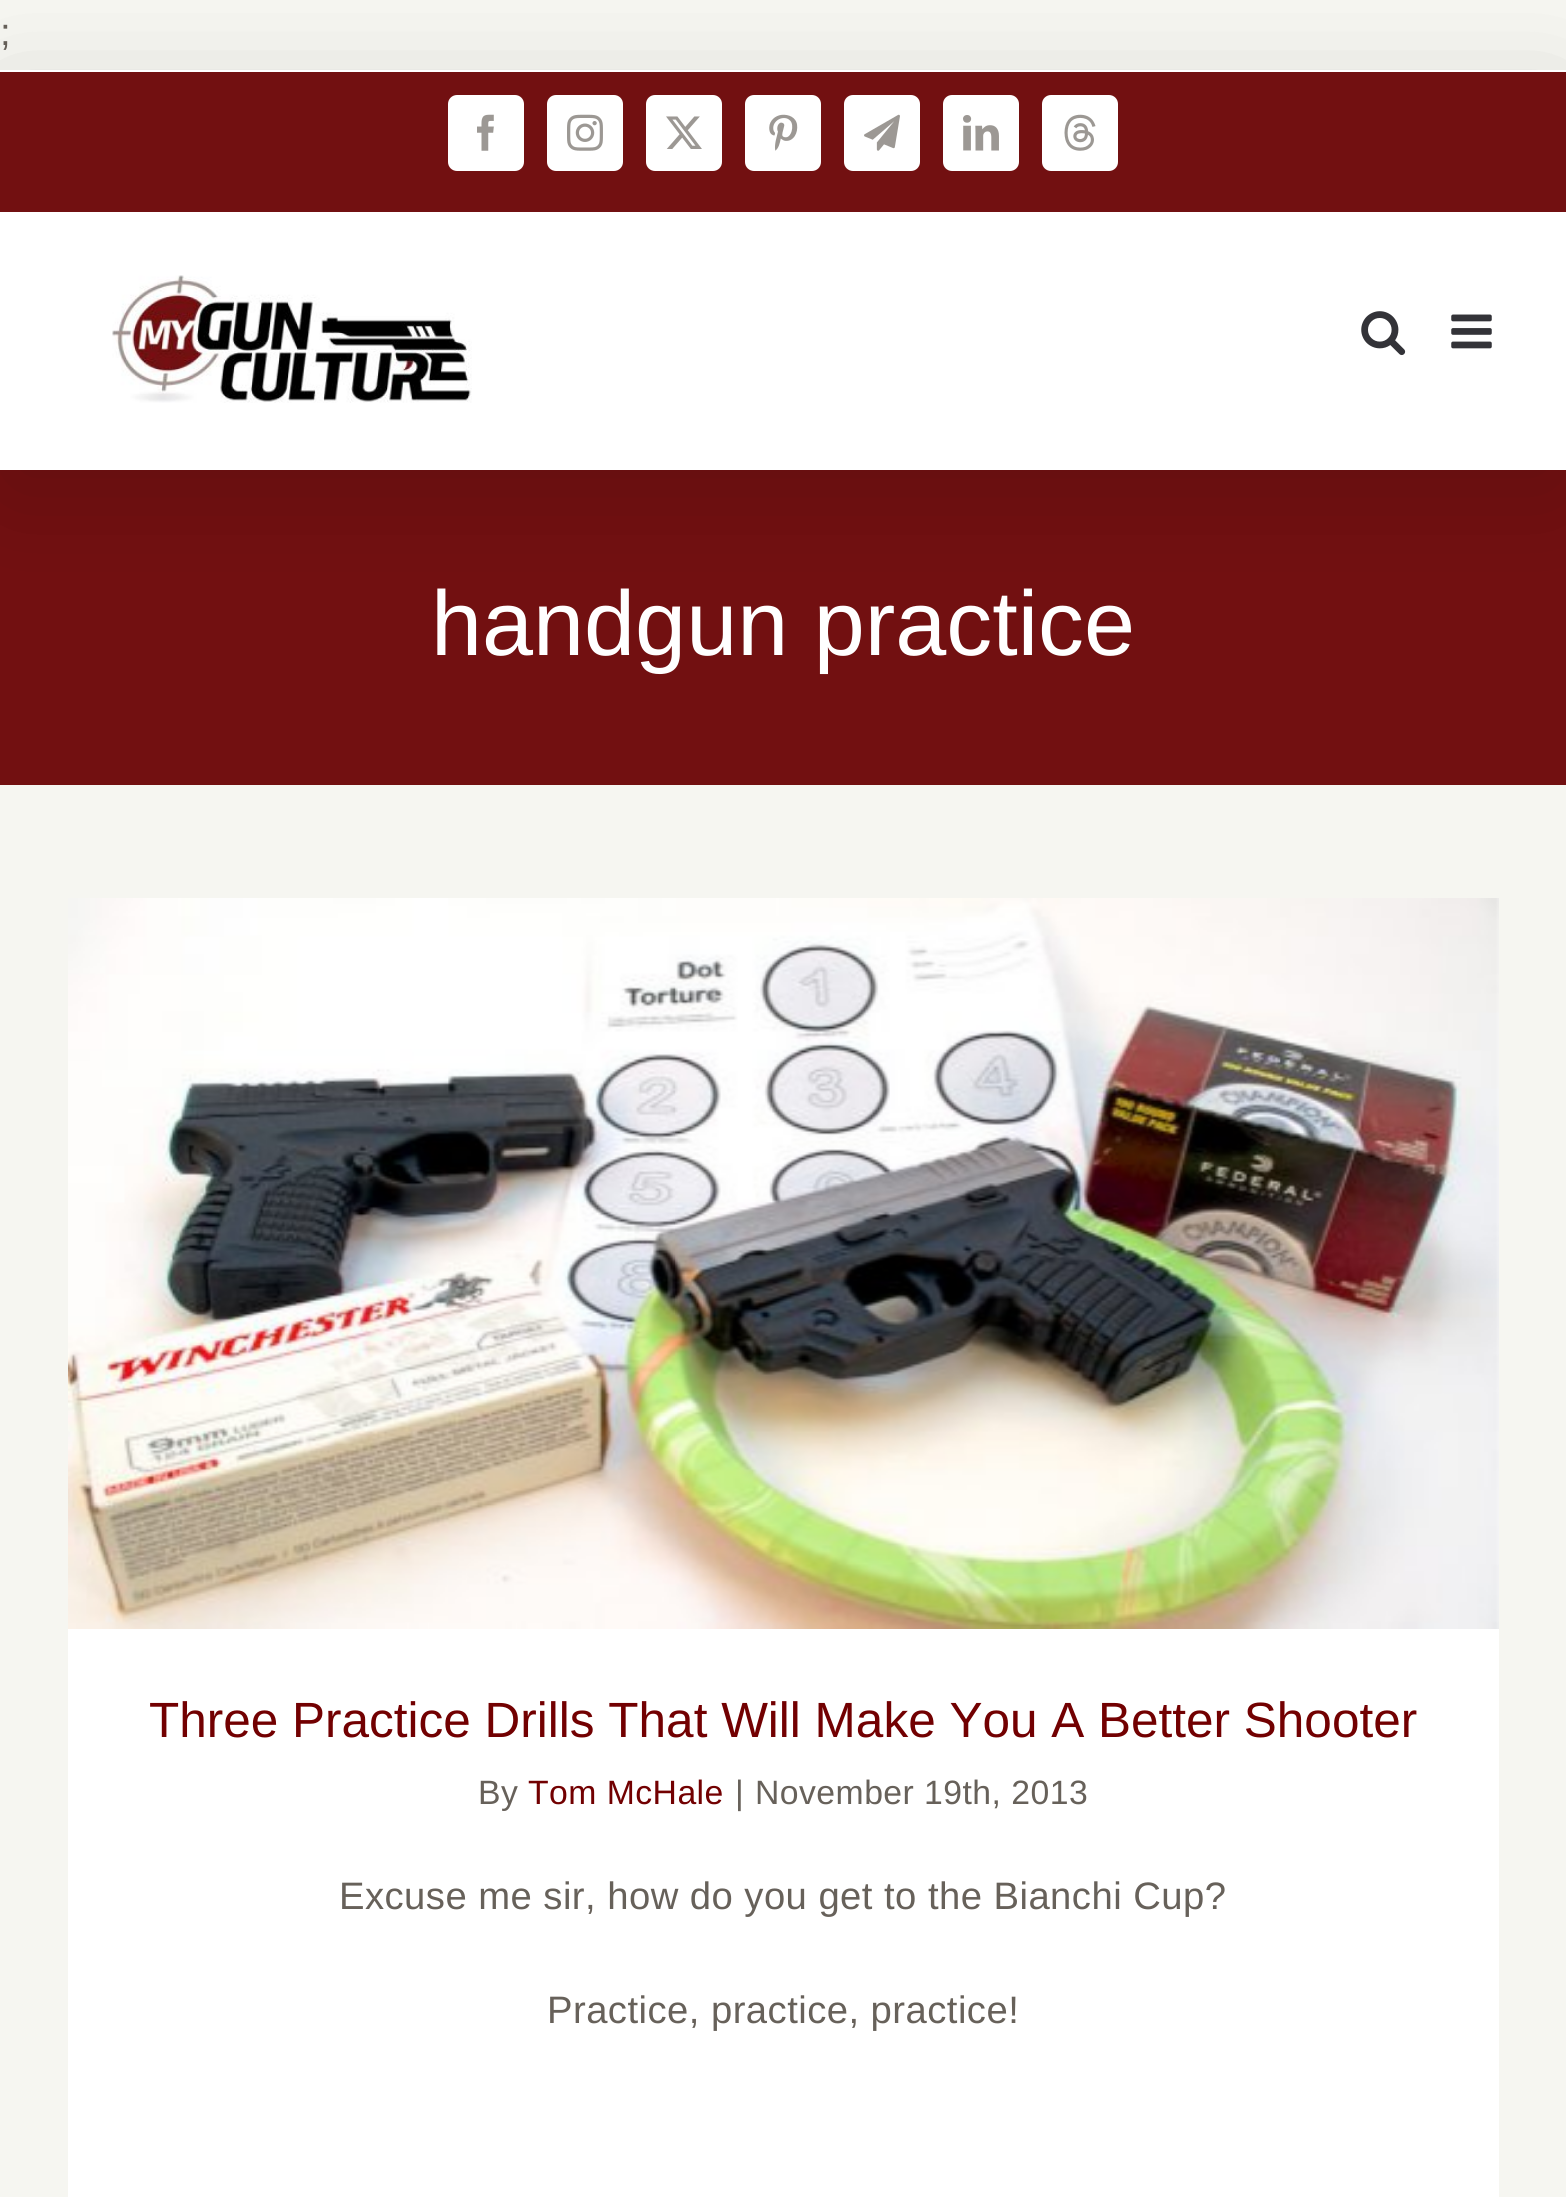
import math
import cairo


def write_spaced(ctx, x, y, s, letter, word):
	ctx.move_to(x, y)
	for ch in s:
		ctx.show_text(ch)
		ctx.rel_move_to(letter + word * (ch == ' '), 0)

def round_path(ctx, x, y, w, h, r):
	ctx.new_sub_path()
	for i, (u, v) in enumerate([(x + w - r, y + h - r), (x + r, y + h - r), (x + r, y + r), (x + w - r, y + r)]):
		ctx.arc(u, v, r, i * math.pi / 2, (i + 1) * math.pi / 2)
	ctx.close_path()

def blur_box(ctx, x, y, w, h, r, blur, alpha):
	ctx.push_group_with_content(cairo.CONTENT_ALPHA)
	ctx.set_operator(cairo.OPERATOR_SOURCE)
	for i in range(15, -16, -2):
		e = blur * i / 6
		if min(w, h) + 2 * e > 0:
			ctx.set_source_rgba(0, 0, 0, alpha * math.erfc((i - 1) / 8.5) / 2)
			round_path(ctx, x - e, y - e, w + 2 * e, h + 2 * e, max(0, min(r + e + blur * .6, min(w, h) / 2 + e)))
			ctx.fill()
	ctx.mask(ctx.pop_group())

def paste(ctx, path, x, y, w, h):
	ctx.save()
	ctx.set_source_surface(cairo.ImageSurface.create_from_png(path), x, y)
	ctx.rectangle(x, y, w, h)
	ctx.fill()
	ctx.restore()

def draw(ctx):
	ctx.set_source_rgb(0.961, 0.961, 0.945)
	ctx.paint()
	ctx.select_font_face('Liberation Sans')
	ctx.set_font_size(38.25)
	ctx.set_source_rgb(0.404, 0.38, 0.353)
	write_spaced(ctx, 0, 45, ';', 0.45, 0)
	ctx.set_source_rgb(0.447, 0.063, 0.067)
	ctx.rectangle(0, 470, 1566, 315)
	ctx.fill()
	ctx.set_source_rgb(0, 0, 0)
	blur_box(ctx, 5, 97, 1557, 391, 0, 56, 0.14)
	ctx.set_source_rgb(0.447, 0.063, 0.067)
	ctx.rectangle(0, 72, 1566, 140)
	ctx.fill()
	ctx.set_source_rgb(1, 1, 1)
	ctx.rectangle(0, 212, 1566, 258)
	ctx.rectangle(0, 70, 1566, 2)
	ctx.fill()
	round_path(ctx, 449, 96, 74, 74, 8)
	ctx.fill_preserve()
	ctx.stroke()
	paste(ctx, 'media/1.png', 477, 114, 17, 37)
	round_path(ctx, 548, 96, 74, 74, 8)
	ctx.fill_preserve()
	ctx.stroke()
	paste(ctx, 'media/2.png', 567, 114, 36, 37)
	round_path(ctx, 647, 96, 74, 74, 8)
	ctx.fill_preserve()
	ctx.stroke()
	paste(ctx, 'media/3.png', 666, 116, 36, 33)
	round_path(ctx, 746, 96, 74, 74, 8)
	ctx.fill_preserve()
	ctx.stroke()
	paste(ctx, 'media/4.png', 769, 114, 29, 37)
	round_path(ctx, 845, 96, 74, 74, 8)
	ctx.fill_preserve()
	ctx.stroke()
	paste(ctx, 'media/5.png', 864, 114, 36, 37)
	round_path(ctx, 944, 96, 74, 74, 8)
	ctx.fill_preserve()
	ctx.stroke()
	paste(ctx, 'media/6.png', 963, 115, 36, 36)
	round_path(ctx, 1043, 96, 74, 74, 8)
	ctx.fill_preserve()
	ctx.stroke()
	paste(ctx, 'media/7.png', 1064, 114, 32, 37)
	paste(ctx, 'media/8.png', 112, 275, 360, 128)
	paste(ctx, 'media/9.png', 1361, 311, 45, 45)
	paste(ctx, 'media/10.png', 1451, 314, 41, 35)
	ctx.set_font_size(91.75)
	ctx.move_to(431, 655)
	ctx.show_text('handgun practice')
	ctx.rectangle(68, 898, 1431, 1299)
	ctx.fill()
	paste(ctx, 'media/11.png', 68, 898, 1431, 731)
	ctx.set_font_size(49.5)
	ctx.set_source_rgb(0.447, 0, 0.004)
	ctx.move_to(149, 1737)
	ctx.show_text('Three Practice Drills That Will Make You A Better Shooter')
	ctx.set_font_size(33.75)
	ctx.set_source_rgb(0.404, 0.38, 0.353)
	write_spaced(ctx, 478, 1804, 'By', 0.45, 0)
	ctx.set_source_rgb(0.447, 0, 0.004)
	write_spaced(ctx, 528, 1804, 'Tom McHale', 0.45, 0)
	ctx.set_source_rgb(0.404, 0.38, 0.353)
	write_spaced(ctx, 735, 1804, '|', 0.45, 0)
	write_spaced(ctx, 755, 1804, 'November 19th, 2013', 0.45, 0)
	ctx.set_font_size(38.25)
	write_spaced(ctx, 339, 1909, 'Excuse me sir, how do you get to the Bianchi Cup?', 0.45, 0)
	write_spaced(ctx, 547, 2023, 'Practice, practice, practice!', 0.45, 0)


surface = cairo.ImageSurface(cairo.FORMAT_RGB24, 1566, 2197)
ctx = cairo.Context(surface)
options = cairo.FontOptions()
options.set_hint_metrics(cairo.HINT_METRICS_OFF)
options.set_hint_style(cairo.HINT_STYLE_NONE)
ctx.set_font_options(options)
ctx.set_miter_limit(4)
draw(ctx)
surface.write_to_png('image.png')
